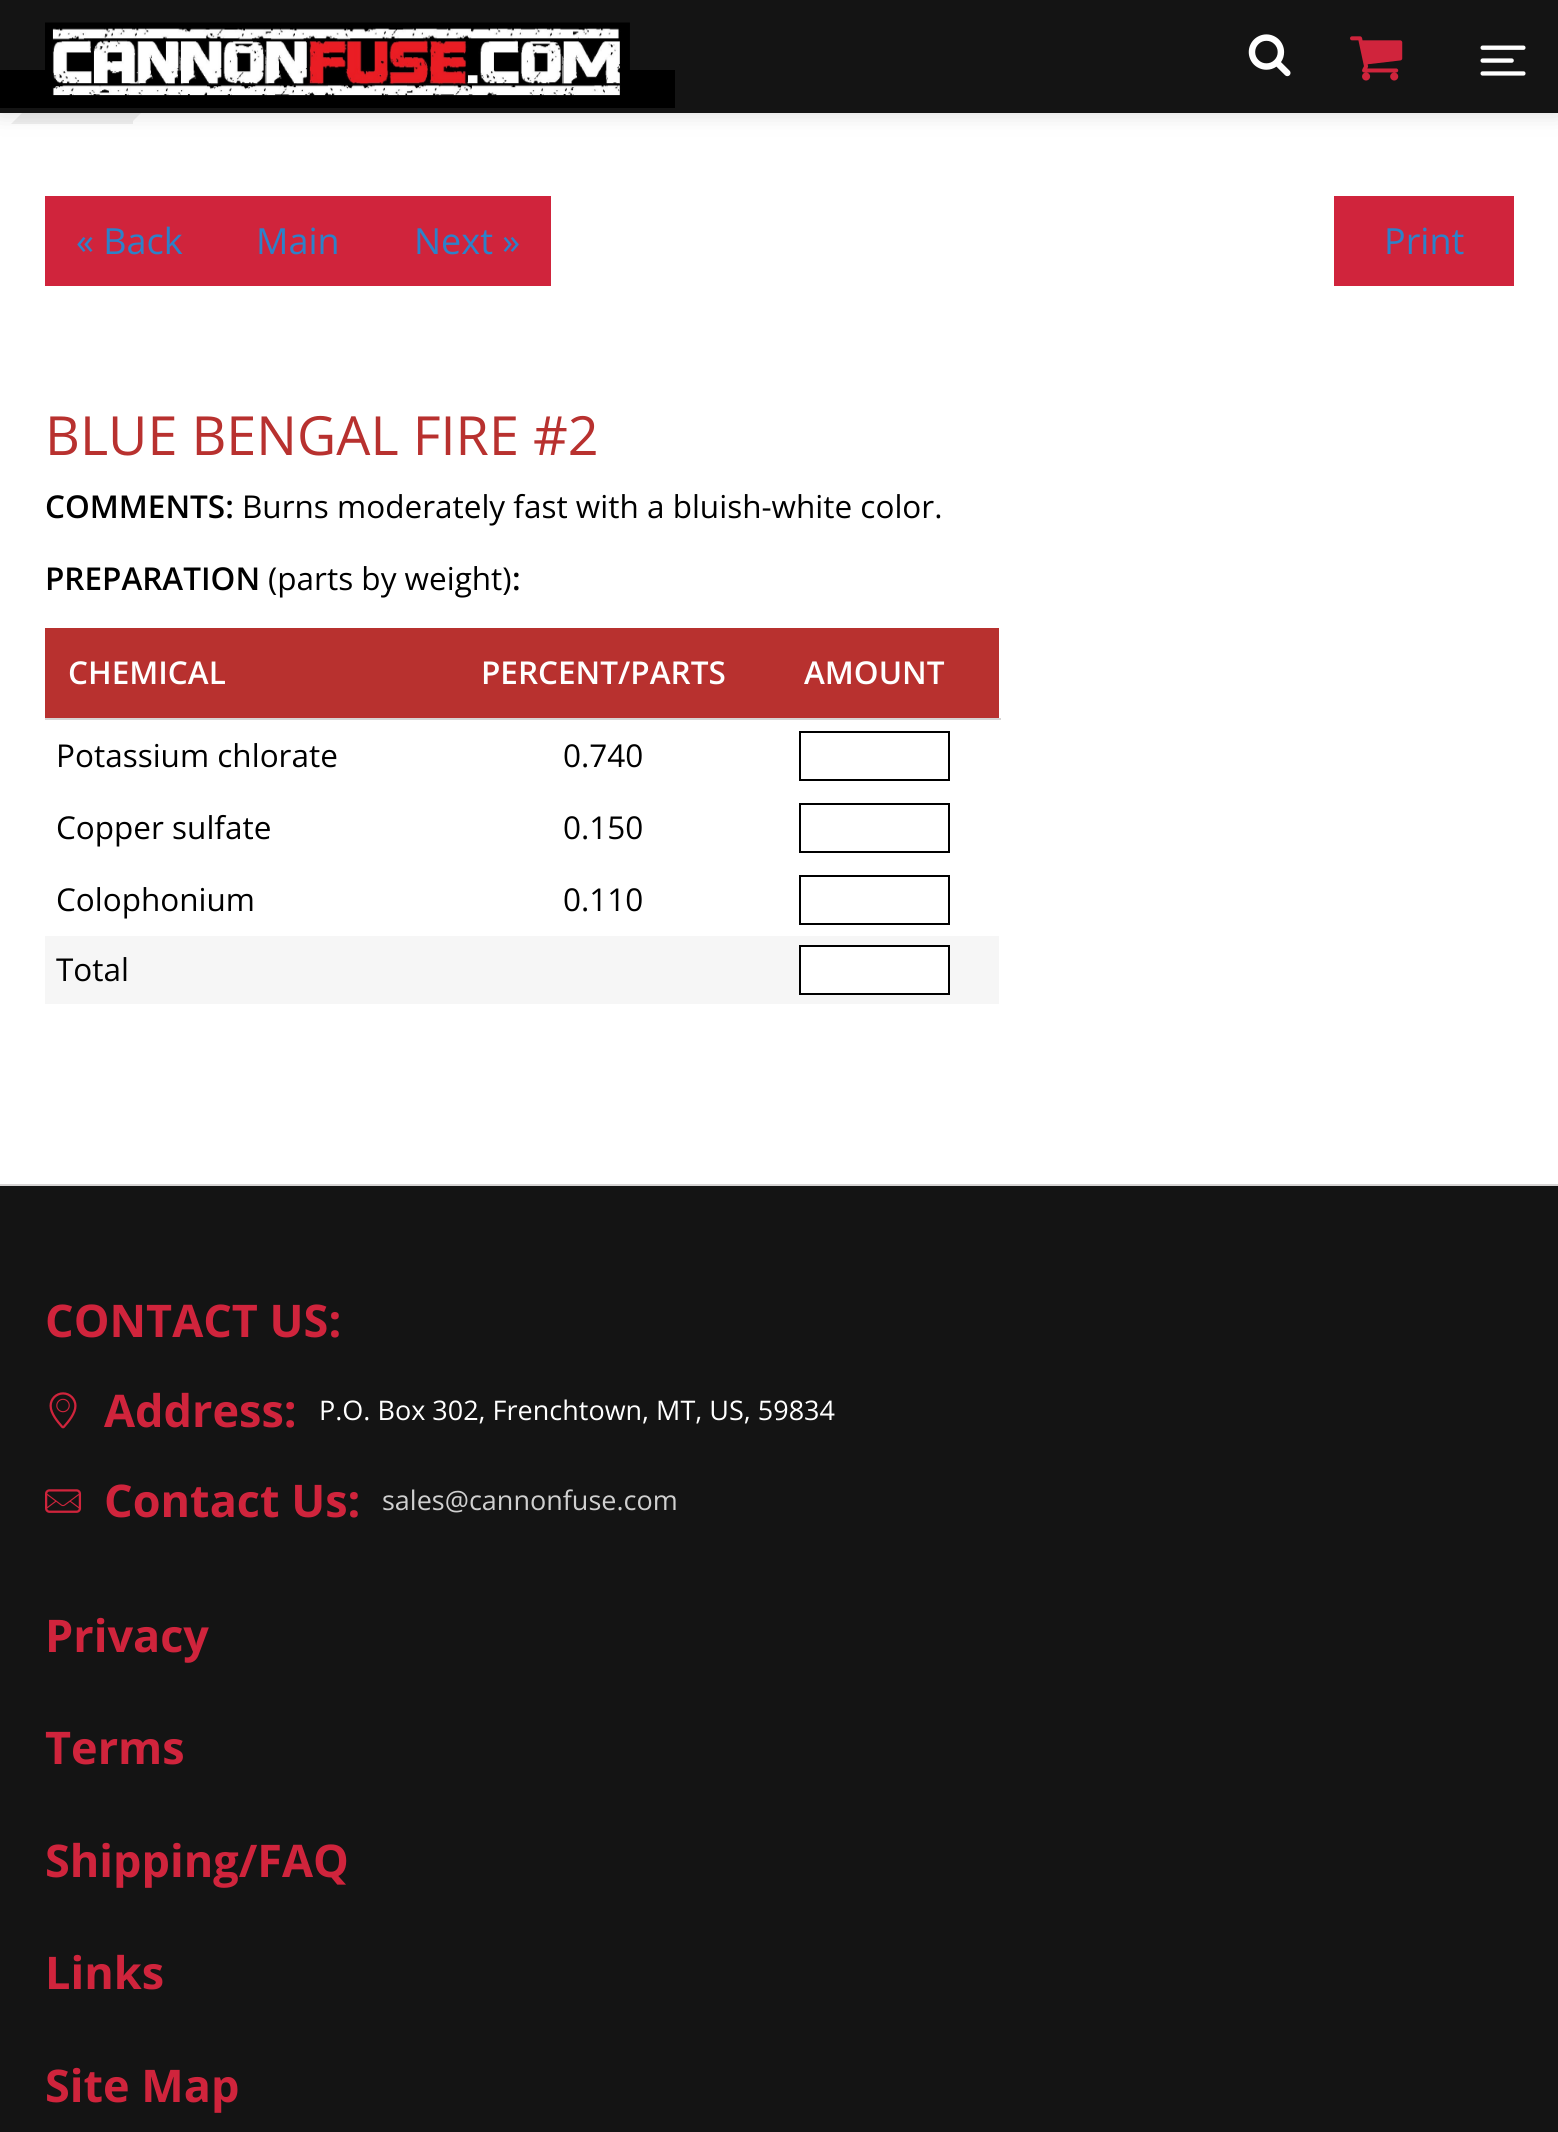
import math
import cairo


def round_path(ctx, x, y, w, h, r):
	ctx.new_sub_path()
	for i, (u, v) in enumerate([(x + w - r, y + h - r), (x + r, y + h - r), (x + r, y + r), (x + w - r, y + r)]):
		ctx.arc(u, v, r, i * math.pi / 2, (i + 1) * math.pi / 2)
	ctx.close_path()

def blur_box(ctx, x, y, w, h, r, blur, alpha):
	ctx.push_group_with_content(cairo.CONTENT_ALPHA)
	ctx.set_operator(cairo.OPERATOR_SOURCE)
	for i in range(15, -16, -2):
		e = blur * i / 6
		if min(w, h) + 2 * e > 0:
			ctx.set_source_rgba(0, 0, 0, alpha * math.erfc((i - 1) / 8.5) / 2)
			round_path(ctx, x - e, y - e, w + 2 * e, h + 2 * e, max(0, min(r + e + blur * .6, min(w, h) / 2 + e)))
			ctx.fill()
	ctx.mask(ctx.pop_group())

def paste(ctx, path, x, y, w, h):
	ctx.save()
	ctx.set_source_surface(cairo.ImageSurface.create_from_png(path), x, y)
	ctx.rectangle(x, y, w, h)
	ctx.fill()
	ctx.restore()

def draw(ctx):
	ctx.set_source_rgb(1, 1, 1)
	ctx.paint()
	ctx.set_source_rgb(0.929, 0.929, 0.929)
	ctx.rectangle(47, 113, 86, 11)
	ctx.fill()
	ctx.new_path()
	ctx.move_to(47, 124)
	ctx.line_to(11, 124)
	ctx.line_to(47, 88)
	ctx.close_path()
	ctx.fill()
	ctx.new_path()
	ctx.move_to(130, 124)
	ctx.line_to(130, 52)
	ctx.line_to(166, 88)
	ctx.close_path()
	ctx.fill()
	ctx.set_source_rgb(0.29, 0.286, 0.29)
	blur_box(ctx, 0, 0, 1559, 113, 0, 11, 0.2)
	ctx.set_source_rgb(0.082, 0.082, 0.082)
	ctx.rectangle(0, 0, 1558, 113)
	ctx.fill()
	ctx.set_source_rgb(0, 0, 0)
	ctx.rectangle(0, 70, 675, 38)
	ctx.fill()
	paste(ctx, 'media/1.png', 45, 22, 585, 74)
	paste(ctx, 'media/2.png', 1248, 34, 43, 43)
	paste(ctx, 'media/3.png', 1350, 36, 53, 45)
	paste(ctx, 'media/4.png', 1480, 45, 46, 31)
	ctx.set_source_rgb(0.816, 0.141, 0.235)
	ctx.rectangle(45, 196, 506, 90)
	ctx.fill()
	ctx.select_font_face('Open Sans')
	ctx.set_font_size(36)
	ctx.set_source_rgb(0.173, 0.51, 0.788)
	for x, y, s in [
		(76, 254, '« Back'),
		(256, 254, 'Main'),
		(414, 254, 'Next »'),
	]:
		ctx.move_to(x, y)
		ctx.show_text(s)
	ctx.set_source_rgb(0.816, 0.141, 0.235)
	ctx.rectangle(1334, 196, 180, 90)
	ctx.fill()
	ctx.set_source_rgb(0.173, 0.51, 0.788)
	ctx.move_to(1384, 254)
	ctx.show_text('Print')
	ctx.set_font_size(54)
	ctx.set_source_rgb(0.722, 0.192, 0.184)
	ctx.move_to(45, 455)
	ctx.show_text('BLUE BENGAL FIRE #2')
	ctx.select_font_face('Open Sans SemiBold')
	ctx.set_font_size(31.5)
	ctx.set_source_rgb(0, 0, 0)
	ctx.move_to(45, 518)
	ctx.show_text('COMMENTS:')
	ctx.select_font_face('Open Sans')
	ctx.move_to(242, 518)
	ctx.show_text('Burns moderately fast with a bluish-white color.')
	ctx.select_font_face('Open Sans SemiBold')
	ctx.move_to(45, 590)
	ctx.show_text('PREPARATION')
	ctx.select_font_face('Open Sans')
	ctx.move_to(268, 590)
	ctx.show_text('(parts by weight)')
	ctx.select_font_face('Open Sans SemiBold')
	ctx.move_to(512, 590)
	ctx.show_text(':')
	ctx.set_source_rgb(0.722, 0.192, 0.184)
	ctx.rectangle(45, 628, 954, 90)
	ctx.fill()
	ctx.set_source_rgb(1, 1, 1)
	for x, y, s in [
		(68, 684, 'CHEMICAL'),
		(481, 684, 'PERCENT/PARTS'),
		(804, 684, 'AMOUNT'),
	]:
		ctx.move_to(x, y)
		ctx.show_text(s)
	ctx.set_source_rgb(0.839, 0.831, 0.831)
	ctx.rectangle(45, 718, 956, 2)
	ctx.fill()
	ctx.select_font_face('Open Sans')
	ctx.set_source_rgb(0, 0, 0)
	ctx.move_to(56, 767)
	ctx.show_text('Potassium chlorate')
	ctx.move_to(563, 767)
	ctx.show_text('0.740')
	ctx.rectangle(800, 732, 149, 48)
	ctx.stroke()
	ctx.move_to(56, 839)
	ctx.show_text('Copper sulfate')
	ctx.move_to(563, 839)
	ctx.show_text('0.150')
	ctx.rectangle(800, 804, 149, 48)
	ctx.stroke()
	ctx.move_to(56, 911)
	ctx.show_text('Colophonium')
	ctx.move_to(563, 911)
	ctx.show_text('0.110')
	ctx.rectangle(800, 876, 149, 48)
	ctx.stroke()
	ctx.set_source_rgb(0.961, 0.961, 0.961)
	ctx.rectangle(45, 936, 954, 68)
	ctx.fill()
	ctx.set_source_rgb(0, 0, 0)
	ctx.move_to(56, 981)
	ctx.show_text('Total')
	ctx.set_source_rgb(1, 1, 1)
	ctx.rectangle(800, 946, 149, 48)
	ctx.fill_preserve()
	ctx.set_source_rgb(0, 0, 0)
	ctx.stroke()
	ctx.set_source_rgb(0.082, 0.082, 0.082)
	ctx.rectangle(0, 1186, 1558, 946)
	ctx.fill()
	ctx.set_source_rgb(0.839, 0.831, 0.831)
	ctx.rectangle(0, 1184, 1558, 2)
	ctx.fill()
	ctx.select_font_face('Open Sans', cairo.FONT_SLANT_NORMAL, cairo.FONT_WEIGHT_BOLD)
	ctx.set_font_size(45)
	ctx.set_source_rgb(0.816, 0.141, 0.235)
	ctx.move_to(45, 1337)
	ctx.show_text('CONTACT US:')
	paste(ctx, 'media/5.png', 49, 1392, 28, 37)
	ctx.move_to(104, 1427)
	ctx.show_text('Address:')
	ctx.select_font_face('Open Sans')
	ctx.set_font_size(27)
	ctx.set_source_rgb(1, 1, 1)
	ctx.move_to(319, 1420)
	ctx.show_text('P.O. Box 302, Frenchtown, MT, US, 59834')
	paste(ctx, 'media/6.png', 45, 1489, 37, 24)
	ctx.select_font_face('Open Sans', cairo.FONT_SLANT_NORMAL, cairo.FONT_WEIGHT_BOLD)
	ctx.set_font_size(45)
	ctx.set_source_rgb(0.816, 0.141, 0.235)
	ctx.move_to(104, 1517)
	ctx.show_text('Contact Us:')
	ctx.select_font_face('Open Sans')
	ctx.set_font_size(27)
	ctx.set_source_rgb(0.816, 0.816, 0.816)
	ctx.move_to(382, 1510)
	ctx.show_text('sales@cannonfuse.com')
	ctx.select_font_face('Open Sans', cairo.FONT_SLANT_NORMAL, cairo.FONT_WEIGHT_BOLD)
	ctx.set_font_size(45)
	ctx.set_source_rgb(0.816, 0.141, 0.235)
	for x, y, s in [
		(45, 1652, 'Privacy'),
		(45, 1764, 'Terms'),
		(45, 1877, 'Shipping/FAQ'),
		(45, 1989, 'Links'),
		(45, 2102, 'Site Map'),
	]:
		ctx.move_to(x, y)
		ctx.show_text(s)


surface = cairo.ImageSurface(cairo.FORMAT_RGB24, 1558, 2132)
ctx = cairo.Context(surface)
options = cairo.FontOptions()
options.set_hint_metrics(cairo.HINT_METRICS_OFF)
options.set_hint_style(cairo.HINT_STYLE_NONE)
ctx.set_font_options(options)
ctx.set_miter_limit(4)
draw(ctx)
surface.write_to_png('image.png')
